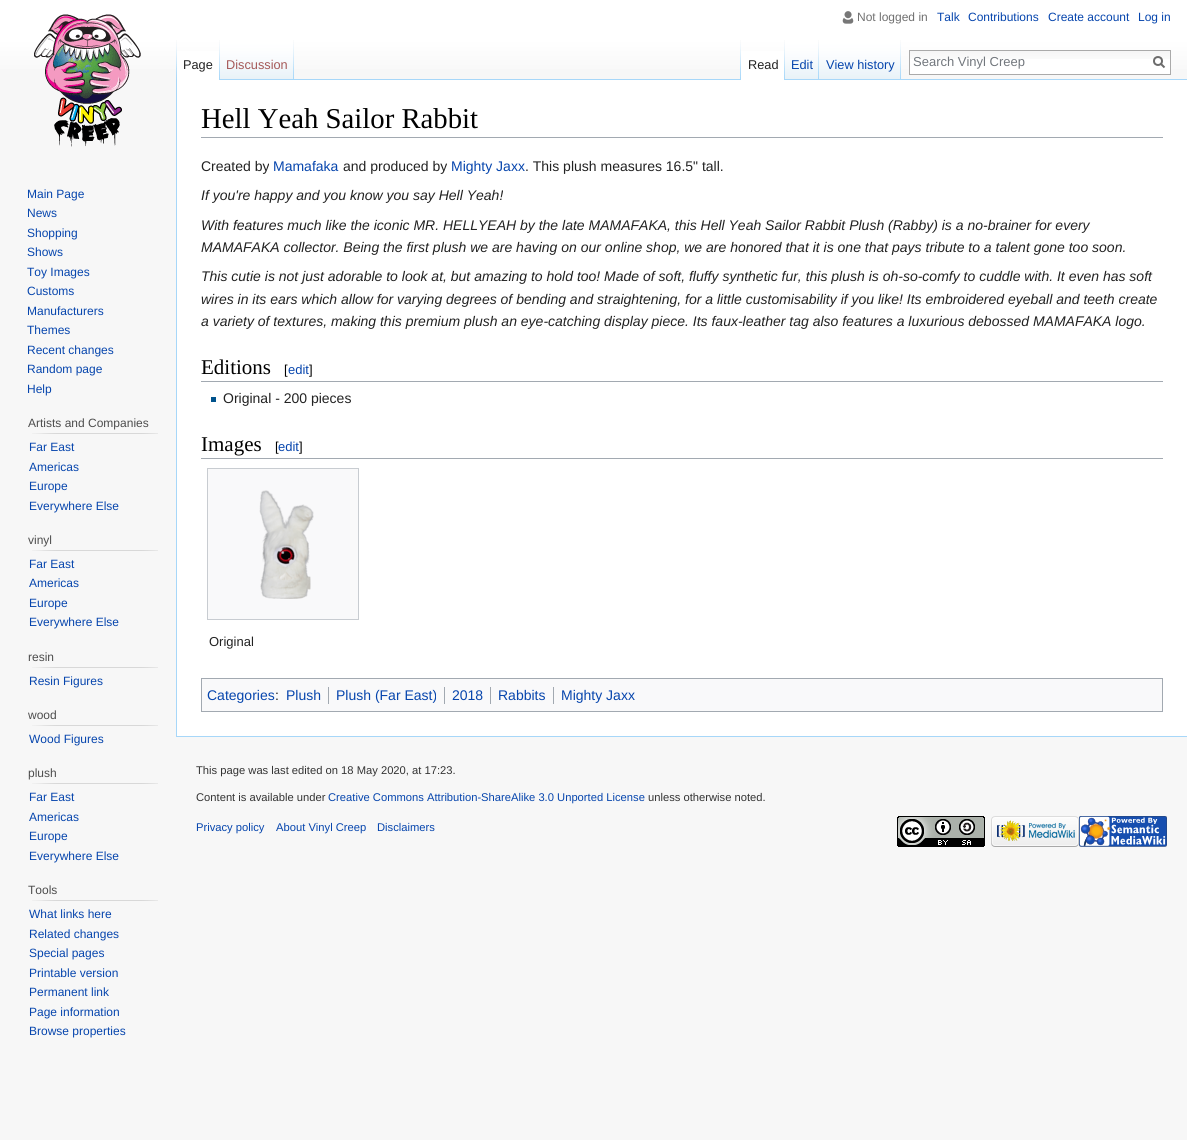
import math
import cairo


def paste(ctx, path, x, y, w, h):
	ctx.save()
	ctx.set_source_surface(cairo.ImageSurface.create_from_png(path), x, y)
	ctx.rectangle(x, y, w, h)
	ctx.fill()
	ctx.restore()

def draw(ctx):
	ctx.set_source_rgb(0.965, 0.965, 0.965)
	ctx.paint()
	gradient = cairo.LinearGradient(594, 0, 594, 80)
	gradient.add_color_stop_rgba(0.5, 1, 1, 1, 1)
	gradient.add_color_stop_rgba(1, 0.965, 0.965, 0.965, 1)
	ctx.set_source(gradient)
	ctx.rectangle(0, 0, 1187, 69)
	ctx.fill()
	paste(ctx, 'media/1.png', 842, 11, 12, 13)
	ctx.select_font_face('Liberation Sans')
	ctx.set_font_size(12)
	ctx.set_source_rgb(0.439, 0.439, 0.439)
	ctx.move_to(857, 21)
	ctx.show_text('Not logged in')
	ctx.set_source_rgb(0.024, 0.271, 0.678)
	for x, y, s in [
		(937, 21, 'Talk'),
		(968, 21, 'Contributions'),
		(1048, 21, 'Create account'),
		(1138, 21, 'Log in'),
	]:
		ctx.move_to(x, y)
		ctx.show_text(s)
	paste(ctx, 'media/2.png', 176, 40, 1, 39)
	ctx.set_source_rgb(1, 1, 1)
	ctx.rectangle(177, 51, 42, 29)
	ctx.fill()
	paste(ctx, 'media/3.png', 219, 40, 1, 40)
	ctx.set_font_size(12.75)
	ctx.set_source_rgb(0.133, 0.133, 0.133)
	ctx.move_to(183, 69)
	ctx.show_text('Page')
	paste(ctx, 'media/4.png', 220, 40, 74, 40)
	paste(ctx, 'media/2.png', 293, 40, 1, 39)
	ctx.set_source_rgb(0.647, 0.345, 0.345)
	ctx.move_to(226, 69)
	ctx.show_text('Discussion')
	paste(ctx, 'media/2.png', 740, 40, 1, 39)
	ctx.set_source_rgb(0.655, 0.843, 0.976)
	ctx.rectangle(294, 79, 893, 1)
	ctx.fill()
	ctx.set_source_rgb(1, 1, 1)
	ctx.rectangle(741, 51, 43, 29)
	ctx.fill()
	paste(ctx, 'media/3.png', 784, 40, 1, 40)
	ctx.set_source_rgb(0.133, 0.133, 0.133)
	ctx.move_to(748, 69)
	ctx.show_text('Read')
	paste(ctx, 'media/5.png', 785, 40, 34, 40)
	paste(ctx, 'media/2.png', 818, 40, 1, 39)
	ctx.set_source_rgb(0.024, 0.271, 0.678)
	ctx.move_to(791, 69)
	ctx.show_text('Edit')
	paste(ctx, 'media/6.png', 819, 40, 82, 40)
	paste(ctx, 'media/2.png', 900, 40, 1, 39)
	ctx.move_to(826, 69)
	ctx.show_text('View history')
	ctx.set_source_rgb(1, 1, 1)
	ctx.rectangle(910, 59, 260, 15)
	ctx.fill()
	paste(ctx, 'media/7.png', 910, 51, 260, 8)
	ctx.rectangle(909.5, 50.5, 261, 24)
	ctx.set_source_rgb(0.667, 0.667, 0.667)
	ctx.set_line_width(1)
	ctx.stroke()
	ctx.set_font_size(13)
	ctx.set_source_rgb(0.447, 0.467, 0.49)
	ctx.move_to(913, 66)
	ctx.show_text('Search Vinyl Creep')
	ctx.new_path()
	ctx.move_to(1164.5, 67.5)
	ctx.line_to(1160.5, 63.5)
	ctx.set_source_rgb(0.424, 0.424, 0.424)
	ctx.set_line_width(2)
	ctx.stroke()
	ctx.arc(1158, 61, 4, 0, 2 * math.pi)
	ctx.stroke()
	paste(ctx, 'media/8.png', 34, 14, 107, 133)
	ctx.set_font_size(12)
	ctx.set_source_rgb(0.024, 0.271, 0.678)
	for x, y, s in [
		(27, 198, 'Main Page'),
		(27, 217, 'News'),
		(27, 237, 'Shopping'),
		(27, 256, 'Shows'),
		(27, 276, 'Toy Images'),
		(27, 295, 'Customs'),
		(27, 315, 'Manufacturers'),
		(27, 334, 'Themes'),
		(27, 354, 'Recent changes'),
		(27, 373, 'Random page'),
		(27, 393, 'Help'),
	]:
		ctx.move_to(x, y)
		ctx.show_text(s)
	ctx.set_source_rgb(0.302, 0.302, 0.302)
	ctx.move_to(28, 427)
	ctx.show_text('Artists and Companies')
	paste(ctx, 'media/9.png', 32, 433, 126, 1)
	ctx.set_source_rgb(0.024, 0.271, 0.678)
	for x, y, s in [
		(29, 451, 'Far East'),
		(29, 471, 'Americas'),
		(29, 490, 'Europe'),
		(29, 510, 'Everywhere Else'),
	]:
		ctx.move_to(x, y)
		ctx.show_text(s)
	ctx.set_source_rgb(0.302, 0.302, 0.302)
	ctx.move_to(28, 544)
	ctx.show_text('vinyl')
	paste(ctx, 'media/9.png', 32, 550, 126, 1)
	ctx.set_source_rgb(0.024, 0.271, 0.678)
	for x, y, s in [
		(29, 568, 'Far East'),
		(29, 587, 'Americas'),
		(29, 607, 'Europe'),
		(29, 626, 'Everywhere Else'),
	]:
		ctx.move_to(x, y)
		ctx.show_text(s)
	ctx.set_source_rgb(0.302, 0.302, 0.302)
	ctx.move_to(28, 661)
	ctx.show_text('resin')
	paste(ctx, 'media/9.png', 32, 667, 126, 1)
	ctx.set_source_rgb(0.024, 0.271, 0.678)
	ctx.move_to(29, 685)
	ctx.show_text('Resin Figures')
	ctx.set_source_rgb(0.302, 0.302, 0.302)
	ctx.move_to(28, 719)
	ctx.show_text('wood')
	paste(ctx, 'media/9.png', 32, 725, 126, 1)
	ctx.set_source_rgb(0.024, 0.271, 0.678)
	ctx.move_to(29, 743)
	ctx.show_text('Wood Figures')
	ctx.set_source_rgb(0.302, 0.302, 0.302)
	ctx.move_to(28, 777)
	ctx.show_text('plush')
	paste(ctx, 'media/9.png', 32, 783, 126, 1)
	ctx.set_source_rgb(0.024, 0.271, 0.678)
	for x, y, s in [
		(29, 801, 'Far East'),
		(29, 821, 'Americas'),
		(29, 840, 'Europe'),
		(29, 860, 'Everywhere Else'),
	]:
		ctx.move_to(x, y)
		ctx.show_text(s)
	ctx.set_source_rgb(0.302, 0.302, 0.302)
	ctx.move_to(28, 894)
	ctx.show_text('Tools')
	paste(ctx, 'media/9.png', 32, 900, 126, 1)
	ctx.set_source_rgb(0.024, 0.271, 0.678)
	for x, y, s in [
		(29, 918, 'What links here'),
		(29, 938, 'Related changes'),
		(29, 957, 'Special pages'),
		(29, 977, 'Printable version'),
		(29, 996, 'Permanent link'),
		(29, 1016, 'Page information'),
		(29, 1035, 'Browse properties'),
	]:
		ctx.move_to(x, y)
		ctx.show_text(s)
	ctx.set_source_rgb(1, 1, 1)
	ctx.rectangle(177, 80, 1010, 656)
	ctx.fill()
	ctx.set_source_rgb(0.655, 0.843, 0.976)
	ctx.rectangle(176, 736, 1011, 1)
	ctx.rectangle(176, 79, 1, 658)
	ctx.fill()
	ctx.set_source_rgb(0.635, 0.663, 0.694)
	ctx.rectangle(201, 137, 962, 1)
	ctx.fill()
	ctx.select_font_face('Liberation Serif')
	ctx.set_font_size(28.75)
	ctx.set_source_rgb(0, 0, 0)
	ctx.move_to(201, 128)
	ctx.show_text('Hell Yeah Sailor Rabbit')
	ctx.select_font_face('Liberation Sans')
	ctx.set_font_size(14)
	ctx.set_source_rgb(0.133, 0.133, 0.133)
	ctx.move_to(201, 171)
	ctx.show_text('Created by')
	ctx.set_source_rgb(0.024, 0.271, 0.678)
	ctx.move_to(273, 171)
	ctx.show_text('Mamafaka')
	ctx.set_source_rgb(0.133, 0.133, 0.133)
	ctx.move_to(343, 171)
	ctx.show_text('and produced by')
	ctx.set_source_rgb(0.024, 0.271, 0.678)
	ctx.move_to(451, 171)
	ctx.show_text('Mighty Jaxx')
	ctx.set_source_rgb(0.133, 0.133, 0.133)
	ctx.move_to(525, 171)
	ctx.show_text('. This plush measures 16.5" tall.')
	ctx.select_font_face('Liberation Sans', cairo.FONT_SLANT_ITALIC)
	for x, y, s in [
		(201, 200, 'If you\'re happy and you know you say Hell Yeah!'),
		(201, 230, 'With features much like the iconic MR. HELLYEAH by the late MAMAFAKA, this Hell Yeah Sailor Rabbit Plush (Rabby) is a no-brainer for every'),
		(201, 252, 'MAMAFAKA collector. Being the first plush we are having on our online shop, we are honored that it is one that pays tribute to a talent gone too soon.'),
		(201, 281, 'This cutie is not just adorable to look at, but amazing to hold too! Made of soft, fluffy synthetic fur, this plush is oh-so-comfy to cuddle with. It even has soft'),
		(201, 304, 'wires in its ears which allow for varying degrees of bending and straightening, for a little customisability if you like! Its embroidered eyeball and teeth create'),
		(201, 326, 'a variety of textures, making this premium plush an eye-catching display piece. Its faux-leather tag also features a luxurious debossed MAMAFAKA logo.'),
	]:
		ctx.move_to(x, y)
		ctx.show_text(s)
	ctx.set_source_rgb(0.635, 0.663, 0.694)
	ctx.rectangle(201, 381, 962, 1)
	ctx.fill()
	ctx.select_font_face('Liberation Serif')
	ctx.set_font_size(21)
	ctx.set_source_rgb(0, 0, 0)
	ctx.move_to(201, 374)
	ctx.show_text('Editions')
	ctx.select_font_face('Liberation Sans')
	ctx.set_font_size(13)
	ctx.move_to(284, 374)
	ctx.show_text('[')
	ctx.set_source_rgb(0.024, 0.271, 0.678)
	ctx.move_to(288, 374)
	ctx.show_text('edit')
	ctx.set_source_rgb(0, 0, 0)
	ctx.move_to(309, 374)
	ctx.show_text(']')
	ctx.set_source_rgb(0, 0.322, 0.549)
	ctx.rectangle(211, 397, 5, 5)
	ctx.fill()
	ctx.set_font_size(14)
	ctx.set_source_rgb(0.133, 0.133, 0.133)
	ctx.move_to(223, 403)
	ctx.show_text('Original - 200 pieces')
	ctx.set_source_rgb(0.635, 0.663, 0.694)
	ctx.rectangle(201, 458, 962, 1)
	ctx.fill()
	ctx.select_font_face('Liberation Serif')
	ctx.set_font_size(21)
	ctx.set_source_rgb(0, 0, 0)
	ctx.move_to(201, 451)
	ctx.show_text('Images')
	ctx.select_font_face('Liberation Sans')
	ctx.set_font_size(13)
	ctx.move_to(275, 451)
	ctx.show_text('[')
	ctx.set_source_rgb(0.024, 0.271, 0.678)
	ctx.move_to(278, 451)
	ctx.show_text('edit')
	ctx.set_source_rgb(0, 0, 0)
	ctx.move_to(299, 451)
	ctx.show_text(']')
	ctx.set_source_rgb(0.973, 0.976, 0.98)
	ctx.rectangle(207.5, 468.5, 151, 151)
	ctx.fill_preserve()
	ctx.set_source_rgb(0.784, 0.8, 0.82)
	ctx.set_line_width(1)
	ctx.stroke()
	paste(ctx, 'media/10.png', 259, 490, 55, 109)
	ctx.set_source_rgb(0.133, 0.133, 0.133)
	ctx.move_to(209, 646)
	ctx.show_text('Original')
	ctx.set_source_rgb(0.973, 0.976, 0.98)
	ctx.rectangle(201.5, 678.5, 961, 33)
	ctx.fill_preserve()
	ctx.set_source_rgb(0.635, 0.663, 0.694)
	ctx.stroke()
	ctx.set_font_size(14)
	ctx.set_source_rgb(0.024, 0.271, 0.678)
	ctx.move_to(207, 700)
	ctx.show_text('Categories')
	ctx.set_source_rgb(0.133, 0.133, 0.133)
	ctx.move_to(275, 700)
	ctx.show_text(':')
	ctx.set_source_rgb(0.024, 0.271, 0.678)
	ctx.move_to(286, 700)
	ctx.show_text('Plush')
	ctx.set_source_rgb(0.635, 0.663, 0.694)
	ctx.rectangle(328, 687, 1, 17)
	ctx.fill()
	ctx.set_source_rgb(0.024, 0.271, 0.678)
	ctx.move_to(336, 700)
	ctx.show_text('Plush (Far East)')
	ctx.set_source_rgb(0.635, 0.663, 0.694)
	ctx.rectangle(444, 687, 1, 17)
	ctx.fill()
	ctx.set_source_rgb(0.024, 0.271, 0.678)
	ctx.move_to(452, 700)
	ctx.show_text('2018')
	ctx.set_source_rgb(0.635, 0.663, 0.694)
	ctx.rectangle(490, 687, 1, 17)
	ctx.fill()
	ctx.set_source_rgb(0.024, 0.271, 0.678)
	ctx.move_to(498, 700)
	ctx.show_text('Rabbits')
	ctx.set_source_rgb(0.635, 0.663, 0.694)
	ctx.rectangle(553, 687, 1, 17)
	ctx.fill()
	ctx.set_source_rgb(0.024, 0.271, 0.678)
	ctx.move_to(561, 700)
	ctx.show_text('Mighty Jaxx')
	ctx.set_font_size(11.2)
	ctx.set_source_rgb(0.2, 0.2, 0.2)
	ctx.move_to(196, 774)
	ctx.show_text('This page was last edited on 18 May 2020, at 17:23.')
	ctx.move_to(196, 801)
	ctx.show_text('Content is available under')
	ctx.set_source_rgb(0.024, 0.271, 0.678)
	ctx.move_to(328, 801)
	ctx.show_text('Creative Commons Attribution-ShareAlike 3.0 Unported License')
	ctx.set_source_rgb(0.2, 0.2, 0.2)
	ctx.move_to(648, 801)
	ctx.show_text('unless otherwise noted.')
	ctx.set_source_rgb(0.024, 0.271, 0.678)
	for x, y, s in [
		(196, 831, 'Privacy policy'),
		(276, 831, 'About Vinyl Creep'),
		(377, 831, 'Disclaimers'),
	]:
		ctx.move_to(x, y)
		ctx.show_text(s)
	paste(ctx, 'media/11.png', 897, 816, 88, 31)
	paste(ctx, 'media/12.png', 991, 816, 88, 31)
	paste(ctx, 'media/13.png', 1079, 816, 88, 31)


surface = cairo.ImageSurface(cairo.FORMAT_RGB24, 1187, 1140)
ctx = cairo.Context(surface)
options = cairo.FontOptions()
options.set_hint_metrics(cairo.HINT_METRICS_OFF)
options.set_hint_style(cairo.HINT_STYLE_NONE)
ctx.set_font_options(options)
ctx.set_miter_limit(4)
draw(ctx)
surface.write_to_png('image.png')
